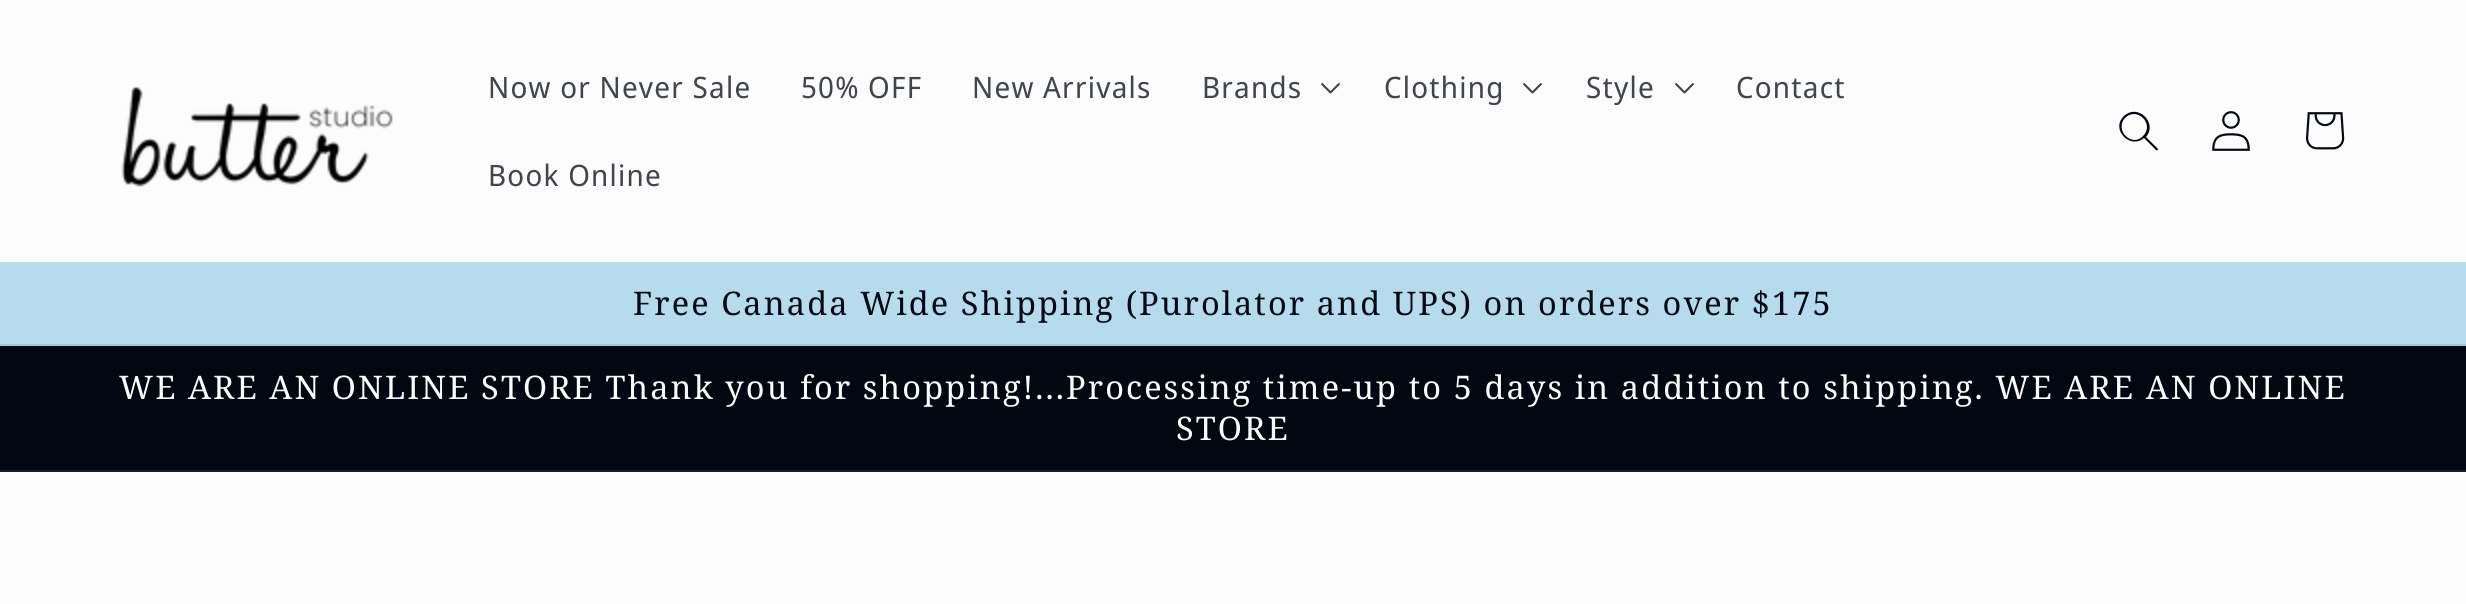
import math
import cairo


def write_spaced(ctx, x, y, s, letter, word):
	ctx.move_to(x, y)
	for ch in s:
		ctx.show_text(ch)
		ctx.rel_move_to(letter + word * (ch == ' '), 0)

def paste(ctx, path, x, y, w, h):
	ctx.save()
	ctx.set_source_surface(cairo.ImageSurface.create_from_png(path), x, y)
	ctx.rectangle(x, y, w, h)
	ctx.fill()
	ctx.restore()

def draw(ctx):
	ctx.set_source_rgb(0.988, 0.988, 0.988)
	ctx.paint()
	paste(ctx, 'media/1.png', 121, 86, 272, 101)
	ctx.select_font_face('Noto Sans Display')
	ctx.set_font_size(29.5)
	ctx.set_source_rgb(0.255, 0.275, 0.302)
	for x, y, s in [
		(488, 98, 'Now or Never Sale'),
		(801, 98, '50% OFF'),
		(972, 98, 'New Arrivals'),
		(1202, 98, 'Brands'),
	]:
		write_spaced(ctx, x, y, s, 1.25, 0)
	paste(ctx, 'media/2.png', 1321, 83, 19, 11)
	write_spaced(ctx, 1384, 98, 'Clothing', 1.25, 0)
	paste(ctx, 'media/2.png', 1523, 83, 19, 11)
	write_spaced(ctx, 1586, 98, 'Style', 1.25, 0)
	paste(ctx, 'media/2.png', 1675, 83, 19, 11)
	write_spaced(ctx, 1736, 98, 'Contact', 1.25, 0)
	write_spaced(ctx, 488, 186, 'Book Online', 1.25, 0)
	ctx.set_source_rgb(0.008, 0.035, 0.071)
	ctx.set_fill_rule(cairo.FILL_RULE_EVEN_ODD)
	ctx.new_path()
	ctx.move_to(2143, 136)
	ctx.curve_to(2132, 148, 2114, 130, 2125, 118)
	ctx.curve_to(2137, 106, 2155, 124, 2143, 136)
	ctx.move_to(2144, 138)
	ctx.curve_to(2130, 150, 2110, 129, 2124, 116)
	ctx.curve_to(2138, 103, 2158, 123, 2146, 137)
	ctx.line_to(2158, 149)
	ctx.curve_to(2158, 150, 2157, 151, 2156, 150)
	ctx.close_path()
	ctx.fill()
	paste(ctx, 'media/3.png', 2212, 111, 38, 40)
	paste(ctx, 'media/4.png', 2306, 112, 39, 38)
	ctx.set_source_rgb(0.71, 0.859, 0.925)
	ctx.rectangle(0, 262, 2466, 82)
	ctx.fill()
	ctx.set_source_rgb(0.655, 0.792, 0.859)
	ctx.rectangle(0, 344, 2466, 2)
	ctx.fill()
	ctx.select_font_face('Noto Serif')
	ctx.set_font_size(32.5)
	ctx.set_source_rgb(0.008, 0.035, 0.071)
	write_spaced(ctx, 633, 315, 'Free Canada Wide Shipping (Purolator and UPS) on orders over $175', 2.1, 0)
	ctx.rectangle(0, 346, 2466, 124)
	ctx.fill()
	ctx.set_source_rgb(0.086, 0.11, 0.145)
	ctx.rectangle(0, 470, 2466, 2)
	ctx.fill()
	ctx.set_source_rgb(0.988, 0.988, 0.988)
	write_spaced(ctx, 119, 399, 'WE ARE AN ONLINE STORE Thank you for shopping!...Processing time-up to 5 days in addition to shipping. WE ARE AN ONLINE', 2.1, 0)
	write_spaced(ctx, 1176, 440, 'STORE', 2.1, 0)


surface = cairo.ImageSurface(cairo.FORMAT_RGB24, 2466, 604)
ctx = cairo.Context(surface)
options = cairo.FontOptions()
options.set_hint_metrics(cairo.HINT_METRICS_OFF)
options.set_hint_style(cairo.HINT_STYLE_NONE)
ctx.set_font_options(options)
ctx.set_miter_limit(4)
draw(ctx)
surface.write_to_png('image.png')
